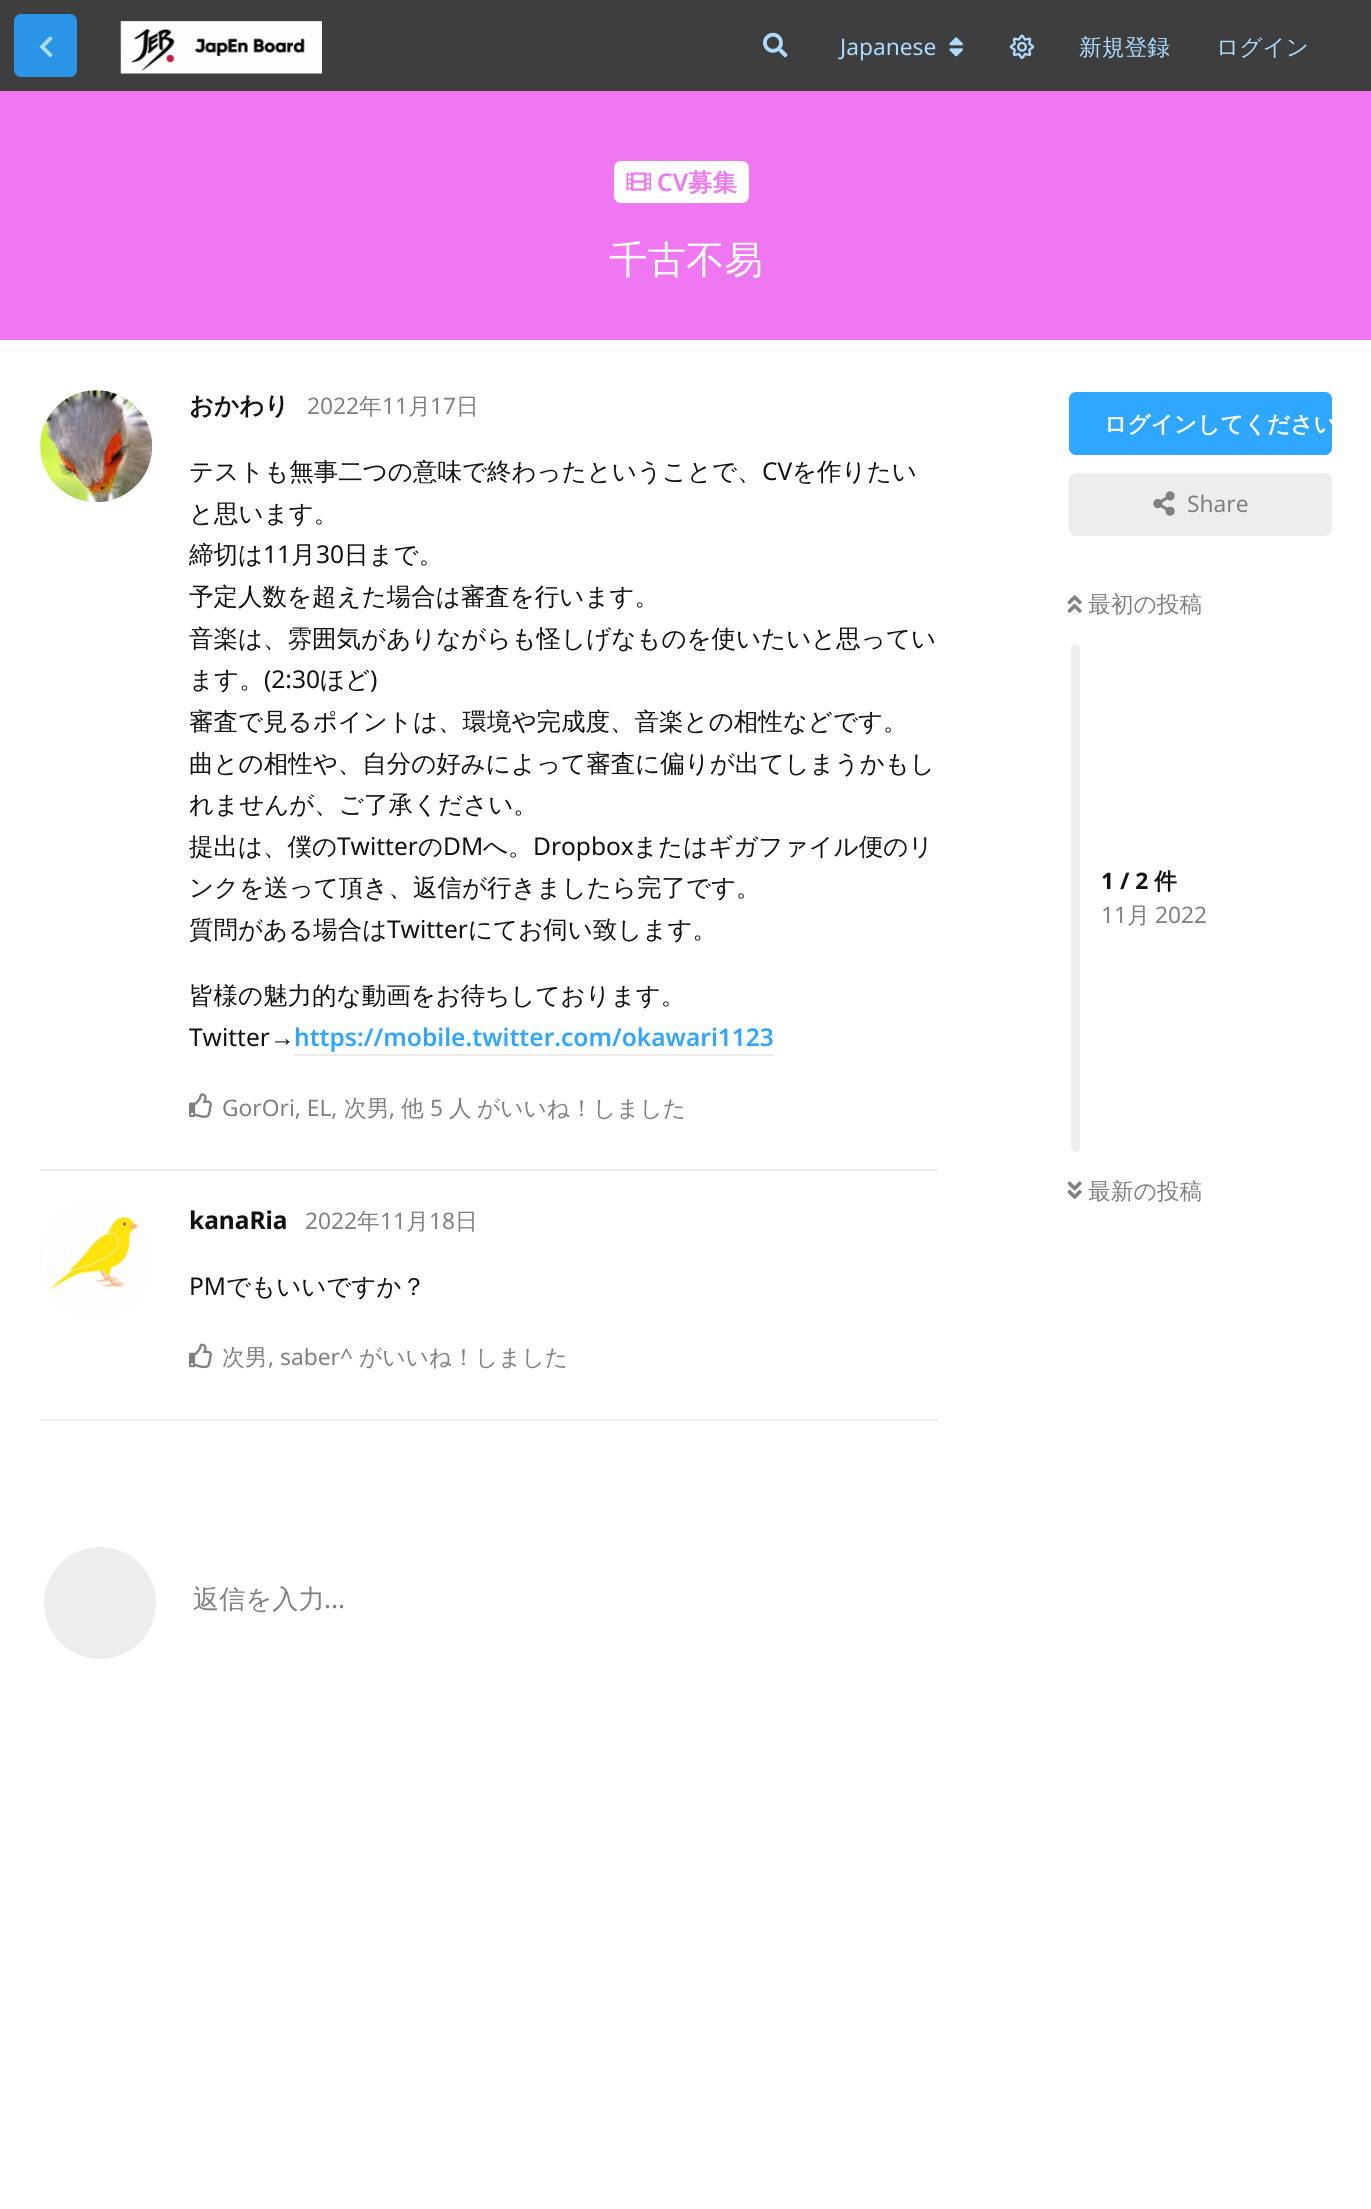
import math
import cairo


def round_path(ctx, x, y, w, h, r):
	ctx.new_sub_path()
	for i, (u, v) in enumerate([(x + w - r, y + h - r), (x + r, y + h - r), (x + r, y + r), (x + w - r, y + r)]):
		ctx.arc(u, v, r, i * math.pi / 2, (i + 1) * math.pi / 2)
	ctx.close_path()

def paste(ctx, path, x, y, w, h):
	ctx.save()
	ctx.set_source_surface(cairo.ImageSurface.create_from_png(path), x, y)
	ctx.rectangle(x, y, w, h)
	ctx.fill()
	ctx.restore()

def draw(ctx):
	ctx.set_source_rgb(1, 1, 1)
	ctx.paint()
	ctx.set_source_rgb(0.243, 0.243, 0.243)
	ctx.rectangle(0, 0, 1371, 91)
	ctx.fill()
	ctx.set_source_rgb(0.165, 0.584, 0.902)
	round_path(ctx, 14, 14, 63, 63, 7)
	ctx.fill()
	paste(ctx, 'media/1.png', 39, 36, 14, 22)
	paste(ctx, 'media/2.png', 120, 21, 202, 53)
	paste(ctx, 'media/3.png', 763, 32, 25, 26)
	ctx.select_font_face('Noto Sans')
	ctx.set_font_size(22.75)
	ctx.set_source_rgb(0.675, 0.859, 1)
	ctx.move_to(840, 55)
	ctx.show_text('Japanese')
	paste(ctx, 'media/4.png', 949, 37, 14, 20)
	paste(ctx, 'media/5.png', 1009, 34, 26, 25)
	ctx.select_font_face('WenQuanYi Zen Hei Medium')
	ctx.move_to(1079, 55)
	ctx.show_text('新規登録')
	ctx.move_to(1216, 55)
	ctx.show_text('ログイン')
	ctx.set_source_rgb(0.941, 0.467, 0.949)
	ctx.rectangle(0, 91, 1371, 249)
	ctx.fill()
	ctx.set_source_rgb(1, 1, 1)
	round_path(ctx, 614, 161, 135, 42, 7)
	ctx.fill()
	paste(ctx, 'media/6.png', 626, 172, 25, 19)
	ctx.select_font_face('Noto Sans SemiBold')
	ctx.set_font_size(24.5)
	ctx.set_source_rgb(0.941, 0.467, 0.949)
	ctx.move_to(657, 191)
	ctx.show_text('CV')
	ctx.select_font_face('WenQuanYi Zen Hei', cairo.FONT_SLANT_NORMAL, cairo.FONT_WEIGHT_BOLD)
	ctx.move_to(688, 191)
	ctx.show_text('募集')
	ctx.select_font_face('WenQuanYi Zen Hei Medium')
	ctx.set_font_size(38.5)
	ctx.set_source_rgb(1, 1, 1)
	ctx.move_to(609, 273)
	ctx.show_text('千古不易')
	ctx.set_source_rgb(0.929, 0.929, 0.929)
	ctx.rectangle(40, 1169, 898, 2)
	ctx.fill()
	ctx.arc(96, 446, 56, 0, 2 * math.pi)
	ctx.fill()
	paste(ctx, 'media/7.png', 40, 390, 113, 113)
	ctx.select_font_face('WenQuanYi Zen Hei', cairo.FONT_SLANT_NORMAL, cairo.FONT_WEIGHT_BOLD)
	ctx.set_font_size(24.5)
	ctx.set_source_rgb(0.067, 0.067, 0.067)
	ctx.move_to(189, 414)
	ctx.show_text('おかわり')
	ctx.select_font_face('Noto Sans')
	ctx.set_font_size(22.75)
	ctx.set_source_rgb(0.502, 0.502, 0.502)
	ctx.move_to(307, 414)
	ctx.show_text('2022')
	ctx.select_font_face('WenQuanYi Zen Hei Medium')
	ctx.move_to(359, 414)
	ctx.show_text('年')
	ctx.select_font_face('Noto Sans')
	ctx.move_to(382, 414)
	ctx.show_text('11')
	ctx.select_font_face('WenQuanYi Zen Hei Medium')
	ctx.move_to(408, 414)
	ctx.show_text('月')
	ctx.select_font_face('Noto Sans')
	ctx.move_to(430, 414)
	ctx.show_text('17')
	ctx.select_font_face('WenQuanYi Zen Hei Medium')
	ctx.move_to(456, 414)
	ctx.show_text('日')
	ctx.set_font_size(24.5)
	ctx.set_source_rgb(0.067, 0.067, 0.067)
	ctx.move_to(189, 480)
	ctx.show_text('テストも無事二つの意味で終わったということで、')
	ctx.select_font_face('Noto Sans')
	ctx.move_to(762, 480)
	ctx.show_text('CV')
	ctx.select_font_face('WenQuanYi Zen Hei Medium')
	for x, y, s in [
		(792, 480, 'を作りたい'),
		(189, 522, 'と思います。'),
		(189, 563, '締切は'),
	]:
		ctx.move_to(x, y)
		ctx.show_text(s)
	ctx.select_font_face('Noto Sans')
	ctx.move_to(263, 563)
	ctx.show_text('11')
	ctx.select_font_face('WenQuanYi Zen Hei Medium')
	ctx.move_to(291, 563)
	ctx.show_text('月')
	ctx.select_font_face('Noto Sans')
	ctx.move_to(316, 563)
	ctx.show_text('30')
	ctx.select_font_face('WenQuanYi Zen Hei Medium')
	for x, y, s in [
		(344, 563, '日まで。'),
		(189, 605, '予定人数を超えた場合は審査を行います。'),
		(189, 647, '音楽は、雰囲気がありながらも怪しげなものを使いたいと思ってい'),
		(189, 688, 'ます。'),
	]:
		ctx.move_to(x, y)
		ctx.show_text(s)
	ctx.select_font_face('Noto Sans')
	ctx.move_to(264, 688)
	ctx.show_text('(2:30')
	ctx.select_font_face('WenQuanYi Zen Hei Medium')
	ctx.move_to(320, 688)
	ctx.show_text('ほど')
	ctx.select_font_face('Noto Sans')
	ctx.move_to(370, 688)
	ctx.show_text(')')
	ctx.select_font_face('WenQuanYi Zen Hei Medium')
	for x, y, s in [
		(189, 730, '審査で見るポイントは、環境や完成度、音楽との相性などです。'),
		(189, 772, '曲との相性や、自分の好みによって審査に偏りが出てしまうかもし'),
		(189, 813, 'れませんが、ご了承ください。'),
		(189, 855, '提出は、僕の'),
	]:
		ctx.move_to(x, y)
		ctx.show_text(s)
	ctx.select_font_face('Noto Sans')
	ctx.move_to(337, 855)
	ctx.show_text('Twitter')
	ctx.select_font_face('WenQuanYi Zen Hei Medium')
	ctx.move_to(418, 855)
	ctx.show_text('の')
	ctx.select_font_face('Noto Sans')
	ctx.move_to(443, 855)
	ctx.show_text('DM')
	ctx.select_font_face('WenQuanYi Zen Hei Medium')
	ctx.move_to(483, 855)
	ctx.show_text('へ。')
	ctx.select_font_face('Noto Sans')
	ctx.move_to(533, 855)
	ctx.show_text('Dropbox')
	ctx.select_font_face('WenQuanYi Zen Hei Medium')
	for x, y, s in [
		(633, 855, 'またはギガファイル便のリ'),
		(189, 896, 'ンクを送って頂き、返信が行きましたら完了です。'),
		(189, 938, '質問がある場合は'),
	]:
		ctx.move_to(x, y)
		ctx.show_text(s)
	ctx.select_font_face('Noto Sans')
	ctx.move_to(387, 938)
	ctx.show_text('Twitter')
	ctx.select_font_face('WenQuanYi Zen Hei Medium')
	ctx.move_to(468, 938)
	ctx.show_text('にてお伺い致します。')
	ctx.move_to(189, 1004)
	ctx.show_text('皆様の魅力的な動画をお待ちしております。')
	ctx.select_font_face('Noto Sans')
	ctx.move_to(189, 1046)
	ctx.show_text('Twitter')
	ctx.select_font_face('Liberation Sans')
	ctx.move_to(270, 1046)
	ctx.show_text('→')
	ctx.select_font_face('Noto Sans SemiBold')
	ctx.set_source_rgb(0.184, 0.651, 1)
	ctx.move_to(294, 1046)
	ctx.show_text('https://mobile.twitter.com/okawari1123')
	ctx.set_source_rgb(0.929, 0.929, 0.929)
	ctx.rectangle(294, 1054, 480, 2)
	ctx.fill()
	paste(ctx, 'media/8.png', 189, 1093, 23, 25)
	ctx.select_font_face('Noto Sans')
	ctx.set_font_size(22.75)
	ctx.set_source_rgb(0.502, 0.502, 0.502)
	ctx.move_to(222, 1116)
	ctx.show_text('GorOri, EL,')
	ctx.select_font_face('WenQuanYi Zen Hei Medium')
	ctx.move_to(344, 1116)
	ctx.show_text('次男')
	ctx.select_font_face('Noto Sans')
	ctx.move_to(389, 1116)
	ctx.show_text(',')
	ctx.select_font_face('WenQuanYi Zen Hei Medium')
	ctx.move_to(401, 1116)
	ctx.show_text('他')
	ctx.select_font_face('Noto Sans')
	ctx.move_to(430, 1116)
	ctx.show_text('5')
	ctx.select_font_face('WenQuanYi Zen Hei Medium')
	ctx.move_to(449, 1116)
	ctx.show_text('人')
	ctx.move_to(477, 1116)
	ctx.show_text('がいいね！しました')
	ctx.set_source_rgb(0.929, 0.929, 0.929)
	ctx.rectangle(40, 1419, 898, 2)
	ctx.fill()
	ctx.arc(96, 1260, 56, 0, 2 * math.pi)
	ctx.fill()
	paste(ctx, 'media/9.png', 40, 1204, 112, 112)
	ctx.select_font_face('Noto Sans', cairo.FONT_SLANT_NORMAL, cairo.FONT_WEIGHT_BOLD)
	ctx.set_font_size(24.5)
	ctx.set_source_rgb(0.067, 0.067, 0.067)
	ctx.move_to(189, 1229)
	ctx.show_text('kanaRia')
	ctx.select_font_face('Noto Sans')
	ctx.set_font_size(22.75)
	ctx.set_source_rgb(0.502, 0.502, 0.502)
	ctx.move_to(305, 1229)
	ctx.show_text('2022')
	ctx.select_font_face('WenQuanYi Zen Hei Medium')
	ctx.move_to(357, 1229)
	ctx.show_text('年')
	ctx.select_font_face('Noto Sans')
	ctx.move_to(380, 1229)
	ctx.show_text('11')
	ctx.select_font_face('WenQuanYi Zen Hei Medium')
	ctx.move_to(406, 1229)
	ctx.show_text('月')
	ctx.select_font_face('Noto Sans')
	ctx.move_to(429, 1229)
	ctx.show_text('18')
	ctx.select_font_face('WenQuanYi Zen Hei Medium')
	ctx.move_to(455, 1229)
	ctx.show_text('日')
	ctx.select_font_face('Noto Sans')
	ctx.set_font_size(24.5)
	ctx.set_source_rgb(0.067, 0.067, 0.067)
	ctx.move_to(189, 1295)
	ctx.show_text('PM')
	ctx.select_font_face('WenQuanYi Zen Hei Medium')
	ctx.move_to(226, 1295)
	ctx.show_text('でもいいですか？')
	paste(ctx, 'media/10.png', 189, 1343, 23, 26)
	ctx.set_font_size(22.75)
	ctx.set_source_rgb(0.502, 0.502, 0.502)
	ctx.move_to(222, 1365)
	ctx.show_text('次男')
	ctx.select_font_face('Noto Sans')
	ctx.move_to(268, 1365)
	ctx.show_text(', saber^')
	ctx.select_font_face('WenQuanYi Zen Hei Medium')
	ctx.move_to(359, 1365)
	ctx.show_text('がいいね！しました')
	ctx.set_source_rgb(0.929, 0.929, 0.929)
	ctx.new_path()
	ctx.arc(100, 1603, 56, 0, 2 * math.pi)
	ctx.fill()
	ctx.set_font_size(26.25)
	ctx.set_source_rgb(0.502, 0.502, 0.502)
	ctx.move_to(193, 1608)
	ctx.show_text('返信を入力')
	ctx.select_font_face('Noto Sans')
	ctx.move_to(324, 1608)
	ctx.show_text('...')
	ctx.set_source_rgb(0.184, 0.651, 1)
	round_path(ctx, 1069, 392, 263, 63, 7)
	ctx.fill()
	ctx.select_font_face('WenQuanYi Zen Hei', cairo.FONT_SLANT_NORMAL, cairo.FONT_WEIGHT_BOLD)
	ctx.set_font_size(22.75)
	ctx.set_source_rgb(1, 1, 1)
	ctx.move_to(1104, 432)
	ctx.show_text('ログインしてください')
	ctx.set_source_rgb(0.929, 0.929, 0.929)
	round_path(ctx, 1069, 473, 263, 63, 7)
	ctx.fill()
	paste(ctx, 'media/11.png', 1153, 491, 22, 25)
	ctx.select_font_face('Noto Sans')
	ctx.set_source_rgb(0.502, 0.502, 0.502)
	ctx.move_to(1187, 512)
	ctx.show_text('Share')
	paste(ctx, 'media/12.png', 1067, 595, 15, 18)
	ctx.select_font_face('WenQuanYi Zen Hei Medium')
	ctx.move_to(1088, 612)
	ctx.show_text('最初の投稿')
	ctx.set_source_rgb(0.929, 0.929, 0.929)
	round_path(ctx, 1071, 644, 9, 508, 4.5)
	ctx.fill()
	ctx.select_font_face('Noto Sans', cairo.FONT_SLANT_NORMAL, cairo.FONT_WEIGHT_BOLD)
	ctx.set_source_rgb(0.067, 0.067, 0.067)
	ctx.move_to(1101, 889)
	ctx.show_text('1 / 2')
	ctx.select_font_face('WenQuanYi Zen Hei', cairo.FONT_SLANT_NORMAL, cairo.FONT_WEIGHT_BOLD)
	ctx.move_to(1154, 889)
	ctx.show_text('件')
	ctx.select_font_face('Noto Sans')
	ctx.set_source_rgb(0.502, 0.502, 0.502)
	ctx.move_to(1101, 923)
	ctx.show_text('11')
	ctx.select_font_face('WenQuanYi Zen Hei Medium')
	ctx.move_to(1127, 923)
	ctx.show_text('月')
	ctx.select_font_face('Noto Sans')
	ctx.move_to(1155, 923)
	ctx.show_text('2022')
	paste(ctx, 'media/13.png', 1067, 1181, 15, 18)
	ctx.select_font_face('WenQuanYi Zen Hei Medium')
	ctx.move_to(1088, 1199)
	ctx.show_text('最新の投稿')


surface = cairo.ImageSurface(cairo.FORMAT_RGB24, 1371, 2209)
ctx = cairo.Context(surface)
options = cairo.FontOptions()
options.set_hint_metrics(cairo.HINT_METRICS_OFF)
options.set_hint_style(cairo.HINT_STYLE_NONE)
ctx.set_font_options(options)
ctx.set_miter_limit(4)
draw(ctx)
surface.write_to_png('image.png')
